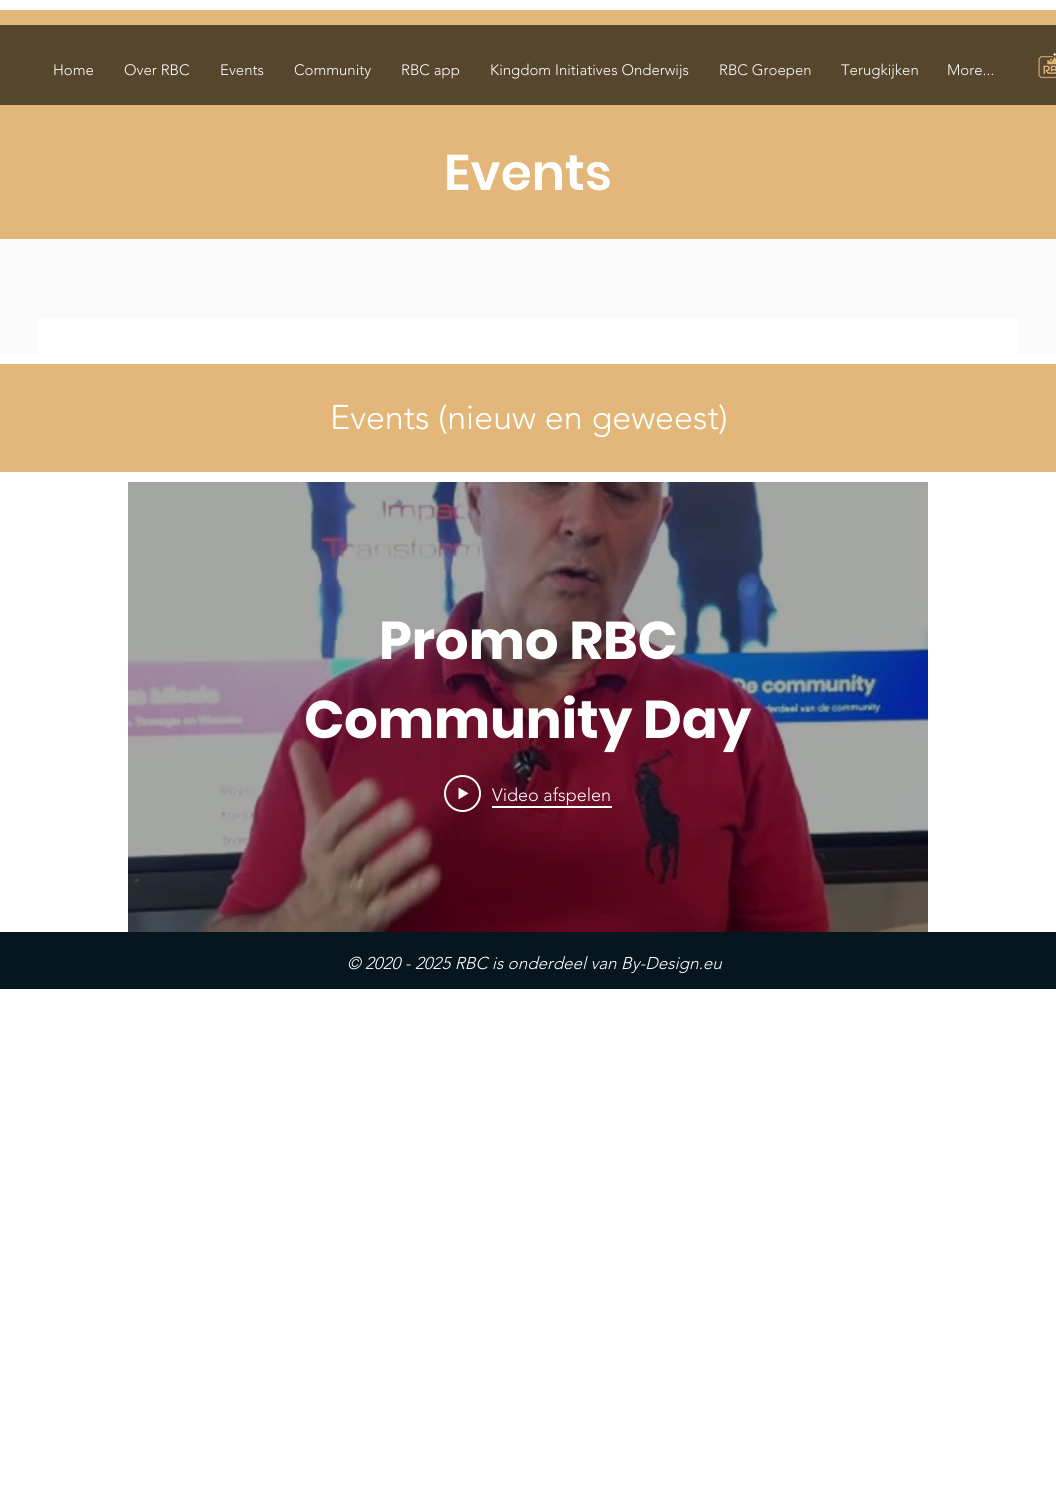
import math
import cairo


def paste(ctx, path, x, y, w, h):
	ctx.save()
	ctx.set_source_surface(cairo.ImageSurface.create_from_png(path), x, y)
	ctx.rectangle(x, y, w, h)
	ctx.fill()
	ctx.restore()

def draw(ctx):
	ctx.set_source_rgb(1, 1, 1)
	ctx.paint()
	ctx.set_source_rgb(0.886, 0.718, 0.475)
	ctx.rectangle(0, 10, 1056, 229)
	ctx.fill()
	ctx.set_source_rgb(0.337, 0.275, 0.18)
	ctx.rectangle(0, 25, 1056, 80)
	ctx.fill()
	ctx.select_font_face('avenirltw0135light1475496 Light')
	ctx.set_font_size(15)
	ctx.set_source_rgb(1, 1, 1)
	for x, y, s in [
		(53, 75, 'Home'),
		(124, 75, 'Over RBC'),
		(220, 75, 'Events'),
		(294, 75, 'Community'),
		(401, 75, 'RBC app'),
		(490, 75, 'Kingdom Initiatives Onderwijs'),
		(719, 75, 'RBC Groepen'),
		(841, 75, 'Terugkijken'),
		(947, 75, 'More...'),
	]:
		ctx.move_to(x, y)
		ctx.show_text(s)
	paste(ctx, 'media/1.png', 1038, 52, 18, 27)
	ctx.select_font_face('Poppins SemiBold')
	ctx.set_font_size(50)
	ctx.move_to(444, 190)
	ctx.show_text('Events')
	ctx.set_source_rgb(0.98, 0.98, 0.98)
	ctx.rectangle(0, 239, 1056, 115)
	ctx.fill()
	ctx.set_source_rgb(1, 1, 1)
	ctx.rectangle(38, 319, 980, 35)
	ctx.fill()
	ctx.set_source_rgb(0.886, 0.718, 0.475)
	ctx.rectangle(0, 364, 1056, 108)
	ctx.fill()
	ctx.select_font_face('avenirltw0135light1475496 Light')
	ctx.set_font_size(34)
	ctx.set_source_rgb(1, 1, 1)
	ctx.move_to(330, 429)
	ctx.show_text('Events (nieuw en geweest)')
	paste(ctx, 'media/2.png', 128, 482, 800, 450)
	ctx.select_font_face('Poppins', cairo.FONT_SLANT_NORMAL, cairo.FONT_WEIGHT_BOLD)
	ctx.set_font_size(53)
	ctx.move_to(379, 659)
	ctx.show_text('Promo RBC')
	ctx.move_to(304, 738)
	ctx.show_text('Community Day')
	paste(ctx, 'media/3.png', 444, 775, 37, 37)
	ctx.rectangle(492, 806, 120, 2)
	ctx.fill()
	ctx.select_font_face('avenirltw0135light1475496 Light')
	ctx.set_font_size(18)
	ctx.move_to(492, 801)
	ctx.show_text('Video afspelen')
	ctx.set_source_rgb(0.02, 0.086, 0.118)
	ctx.rectangle(0, 932, 1056, 57)
	ctx.fill()
	ctx.select_font_face('avenirltw0135light1475496 Light', cairo.FONT_SLANT_ITALIC)
	ctx.set_font_size(17)
	ctx.set_source_rgb(1, 1, 1)
	ctx.move_to(347, 969)
	ctx.show_text('© 2020 - 2025 RBC is onderdeel van By-Design.eu')


surface = cairo.ImageSurface(cairo.FORMAT_RGB24, 1056, 1500)
ctx = cairo.Context(surface)
options = cairo.FontOptions()
options.set_hint_metrics(cairo.HINT_METRICS_OFF)
options.set_hint_style(cairo.HINT_STYLE_NONE)
ctx.set_font_options(options)
ctx.set_miter_limit(4)
draw(ctx)
surface.write_to_png('image.png')
